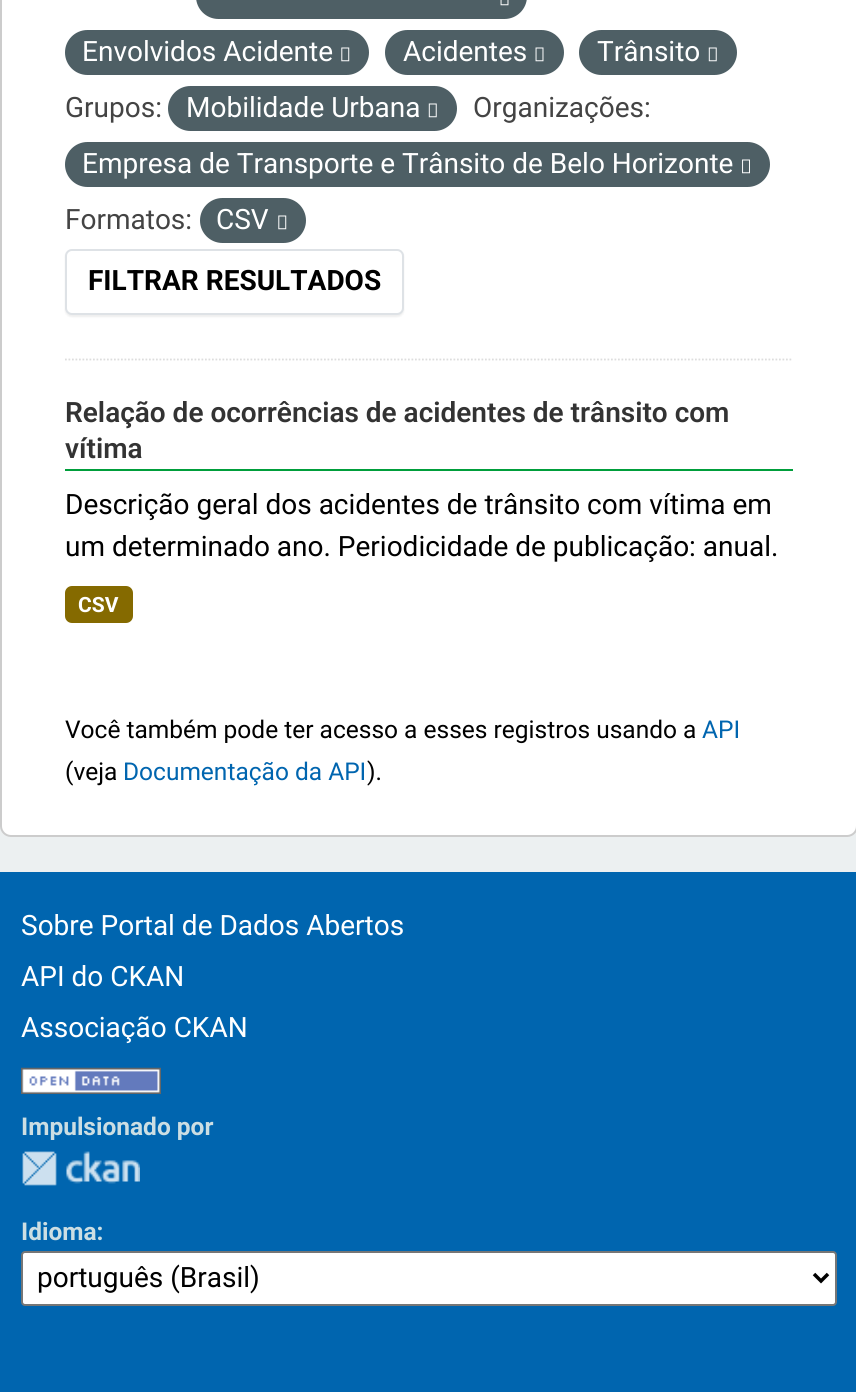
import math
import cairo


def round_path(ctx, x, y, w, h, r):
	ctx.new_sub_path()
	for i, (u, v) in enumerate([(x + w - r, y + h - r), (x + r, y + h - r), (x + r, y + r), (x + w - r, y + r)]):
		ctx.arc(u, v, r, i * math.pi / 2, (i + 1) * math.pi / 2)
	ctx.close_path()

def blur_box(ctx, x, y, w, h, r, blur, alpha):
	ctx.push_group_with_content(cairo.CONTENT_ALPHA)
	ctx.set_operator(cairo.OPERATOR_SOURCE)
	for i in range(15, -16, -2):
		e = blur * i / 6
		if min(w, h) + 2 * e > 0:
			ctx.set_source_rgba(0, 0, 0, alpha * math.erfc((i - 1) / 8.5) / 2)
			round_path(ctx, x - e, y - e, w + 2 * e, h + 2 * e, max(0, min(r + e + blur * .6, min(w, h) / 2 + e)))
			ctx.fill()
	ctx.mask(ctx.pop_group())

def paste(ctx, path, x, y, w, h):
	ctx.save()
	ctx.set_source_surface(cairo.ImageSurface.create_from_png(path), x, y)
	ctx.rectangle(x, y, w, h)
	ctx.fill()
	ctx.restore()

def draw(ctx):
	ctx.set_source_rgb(0.925, 0.941, 0.945)
	ctx.paint()
	ctx.set_source_rgb(1, 1, 1)
	round_path(ctx, 1, -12, 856, 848, 10)
	ctx.fill_preserve()
	ctx.set_source_rgb(0.8, 0.8, 0.8)
	ctx.stroke()
	ctx.new_path()
	ctx.move_to(65, 359.5)
	ctx.line_to(793, 359.5)
	ctx.set_source_rgb(0.867, 0.867, 0.867)
	ctx.set_line_width(1.8)
	ctx.set_dash([1.75, 1.75])
	ctx.stroke()
	ctx.set_source_rgb(0.306, 0.373, 0.396)
	round_path(ctx, 196, -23, 331, 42, 22.5)
	ctx.fill()
	paste(ctx, 'media/1.png', 500, 0, 9, 6)
	round_path(ctx, 65, 30, 304, 45, 22.5)
	ctx.fill()
	ctx.select_font_face('Roboto')
	ctx.set_font_size(28)
	ctx.set_source_rgb(1, 1, 1)
	ctx.move_to(82, 61)
	ctx.show_text('Envolvidos Acidente')
	paste(ctx, 'media/2.png', 341, 47, 9, 15)
	ctx.set_source_rgb(0.306, 0.373, 0.396)
	round_path(ctx, 385, 30, 179, 45, 22.5)
	ctx.fill()
	ctx.set_source_rgb(1, 1, 1)
	ctx.move_to(403, 61)
	ctx.show_text('Acidentes')
	paste(ctx, 'media/3.png', 535, 47, 9, 15)
	ctx.set_source_rgb(0.306, 0.373, 0.396)
	round_path(ctx, 579, 30, 158, 45, 22.5)
	ctx.fill()
	ctx.set_source_rgb(1, 1, 1)
	ctx.move_to(597, 61)
	ctx.show_text('Trânsito')
	paste(ctx, 'media/4.png', 708, 47, 9, 15)
	ctx.set_source_rgb(0.267, 0.267, 0.267)
	ctx.move_to(65, 117)
	ctx.show_text('Grupos:')
	ctx.set_source_rgb(0.306, 0.373, 0.396)
	round_path(ctx, 168, 86, 289, 45, 22.5)
	ctx.fill()
	ctx.set_source_rgb(1, 1, 1)
	ctx.move_to(186, 117)
	ctx.show_text('Mobilidade Urbana')
	paste(ctx, 'media/4.png', 428, 103, 9, 15)
	ctx.set_source_rgb(0.267, 0.267, 0.267)
	ctx.move_to(473, 117)
	ctx.show_text('Organizações:')
	ctx.set_source_rgb(0.306, 0.373, 0.396)
	round_path(ctx, 65, 142, 705, 45, 22.5)
	ctx.fill()
	ctx.set_source_rgb(1, 1, 1)
	ctx.move_to(82, 173)
	ctx.show_text('Empresa de Transporte e Trânsito de Belo Horizonte')
	paste(ctx, 'media/5.png', 742, 159, 8, 15)
	ctx.set_source_rgb(0.267, 0.267, 0.267)
	ctx.move_to(65, 229)
	ctx.show_text('Formatos:')
	ctx.set_source_rgb(0.306, 0.373, 0.396)
	round_path(ctx, 200, 198, 106, 45, 22.5)
	ctx.fill()
	ctx.set_source_rgb(1, 1, 1)
	ctx.move_to(216, 229)
	ctx.show_text('CSV')
	paste(ctx, 'media/2.png', 278, 215, 9, 15)
	ctx.set_source_rgb(0, 0, 0)
	blur_box(ctx, 65, 250, 339, 67, 7, 1, 0.07)
	ctx.set_source_rgb(1, 1, 1)
	round_path(ctx, 66, 250, 337, 64, 6)
	ctx.fill_preserve()
	ctx.set_source_rgb(0.871, 0.886, 0.902)
	ctx.set_line_width(2)
	ctx.set_dash([])
	ctx.stroke()
	ctx.select_font_face('Roboto', cairo.FONT_SLANT_NORMAL, cairo.FONT_WEIGHT_BOLD)
	ctx.set_source_rgb(0, 0, 0)
	ctx.move_to(88, 290)
	ctx.show_text('FILTRAR RESULTADOS')
	ctx.set_source_rgb(0, 0.62, 0.231)
	ctx.rectangle(65, 469, 728, 2)
	ctx.fill()
	ctx.select_font_face('Roboto SemiBold')
	ctx.set_source_rgb(0.2, 0.2, 0.2)
	ctx.move_to(65, 422)
	ctx.show_text('Relação de ocorrências de acidentes de trânsito com')
	ctx.move_to(65, 458)
	ctx.show_text('vítima')
	ctx.select_font_face('Roboto')
	ctx.set_source_rgb(0, 0, 0)
	ctx.move_to(65, 514)
	ctx.show_text('Descrição geral dos acidentes de trânsito com vítima em')
	ctx.move_to(65, 556)
	ctx.show_text('um determinado ano. Periodicidade de publicação: anual.')
	ctx.set_source_rgb(0.522, 0.416, 0)
	round_path(ctx, 65, 586, 68, 37, 7)
	ctx.fill()
	ctx.select_font_face('Roboto', cairo.FONT_SLANT_NORMAL, cairo.FONT_WEIGHT_BOLD)
	ctx.set_font_size(21)
	ctx.set_source_rgb(1, 1, 1)
	ctx.move_to(78, 612)
	ctx.show_text('CSV')
	ctx.select_font_face('Roboto')
	ctx.set_font_size(24.5)
	ctx.set_source_rgb(0, 0, 0)
	ctx.move_to(65, 738)
	ctx.show_text('Você também pode ter acesso a esses registros usando a')
	ctx.set_source_rgb(0, 0.396, 0.686)
	ctx.move_to(702, 738)
	ctx.show_text('API')
	ctx.set_source_rgb(0, 0, 0)
	ctx.move_to(65, 780)
	ctx.show_text('(veja')
	ctx.set_source_rgb(0, 0.396, 0.686)
	ctx.move_to(123, 780)
	ctx.show_text('Documentação da API')
	ctx.set_source_rgb(0, 0, 0)
	ctx.move_to(367, 780)
	ctx.show_text(').')
	ctx.set_source_rgb(0, 0.396, 0.686)
	ctx.rectangle(0, 872, 856, 520)
	ctx.fill()
	ctx.set_font_size(28)
	ctx.set_source_rgb(1, 1, 1)
	for x, y, s in [
		(21, 935, 'Sobre Portal de Dados Abertos'),
		(21, 986, 'API do CKAN'),
		(21, 1037, 'Associação CKAN'),
	]:
		ctx.move_to(x, y)
		ctx.show_text(s)
	paste(ctx, 'media/6.png', 21, 1067, 140, 27)
	ctx.select_font_face('Roboto', cairo.FONT_SLANT_NORMAL, cairo.FONT_WEIGHT_BOLD)
	ctx.set_font_size(24.5)
	ctx.set_source_rgb(0.8, 0.871, 0.89)
	ctx.move_to(21, 1135)
	ctx.show_text('Impulsionado por')
	paste(ctx, 'media/7.png', 22, 1151, 118, 35)
	ctx.move_to(21, 1240)
	ctx.show_text('Idioma:')
	ctx.set_source_rgb(1, 1, 1)
	round_path(ctx, 22, 1252, 814, 53, 3)
	ctx.fill_preserve()
	ctx.set_source_rgb(0.463, 0.463, 0.463)
	ctx.stroke()
	ctx.new_path()
	ctx.move_to(814, 1274)
	ctx.line_to(821, 1281)
	ctx.line_to(828, 1274)
	ctx.set_source_rgb(0, 0, 0)
	ctx.set_line_width(3.5)
	ctx.stroke()
	ctx.select_font_face('Roboto')
	ctx.set_font_size(28)
	ctx.move_to(37, 1287)
	ctx.show_text('português (Brasil)')


surface = cairo.ImageSurface(cairo.FORMAT_RGB24, 856, 1392)
ctx = cairo.Context(surface)
options = cairo.FontOptions()
options.set_hint_metrics(cairo.HINT_METRICS_OFF)
options.set_hint_style(cairo.HINT_STYLE_NONE)
ctx.set_font_options(options)
ctx.set_miter_limit(4)
draw(ctx)
surface.write_to_png('image.png')
